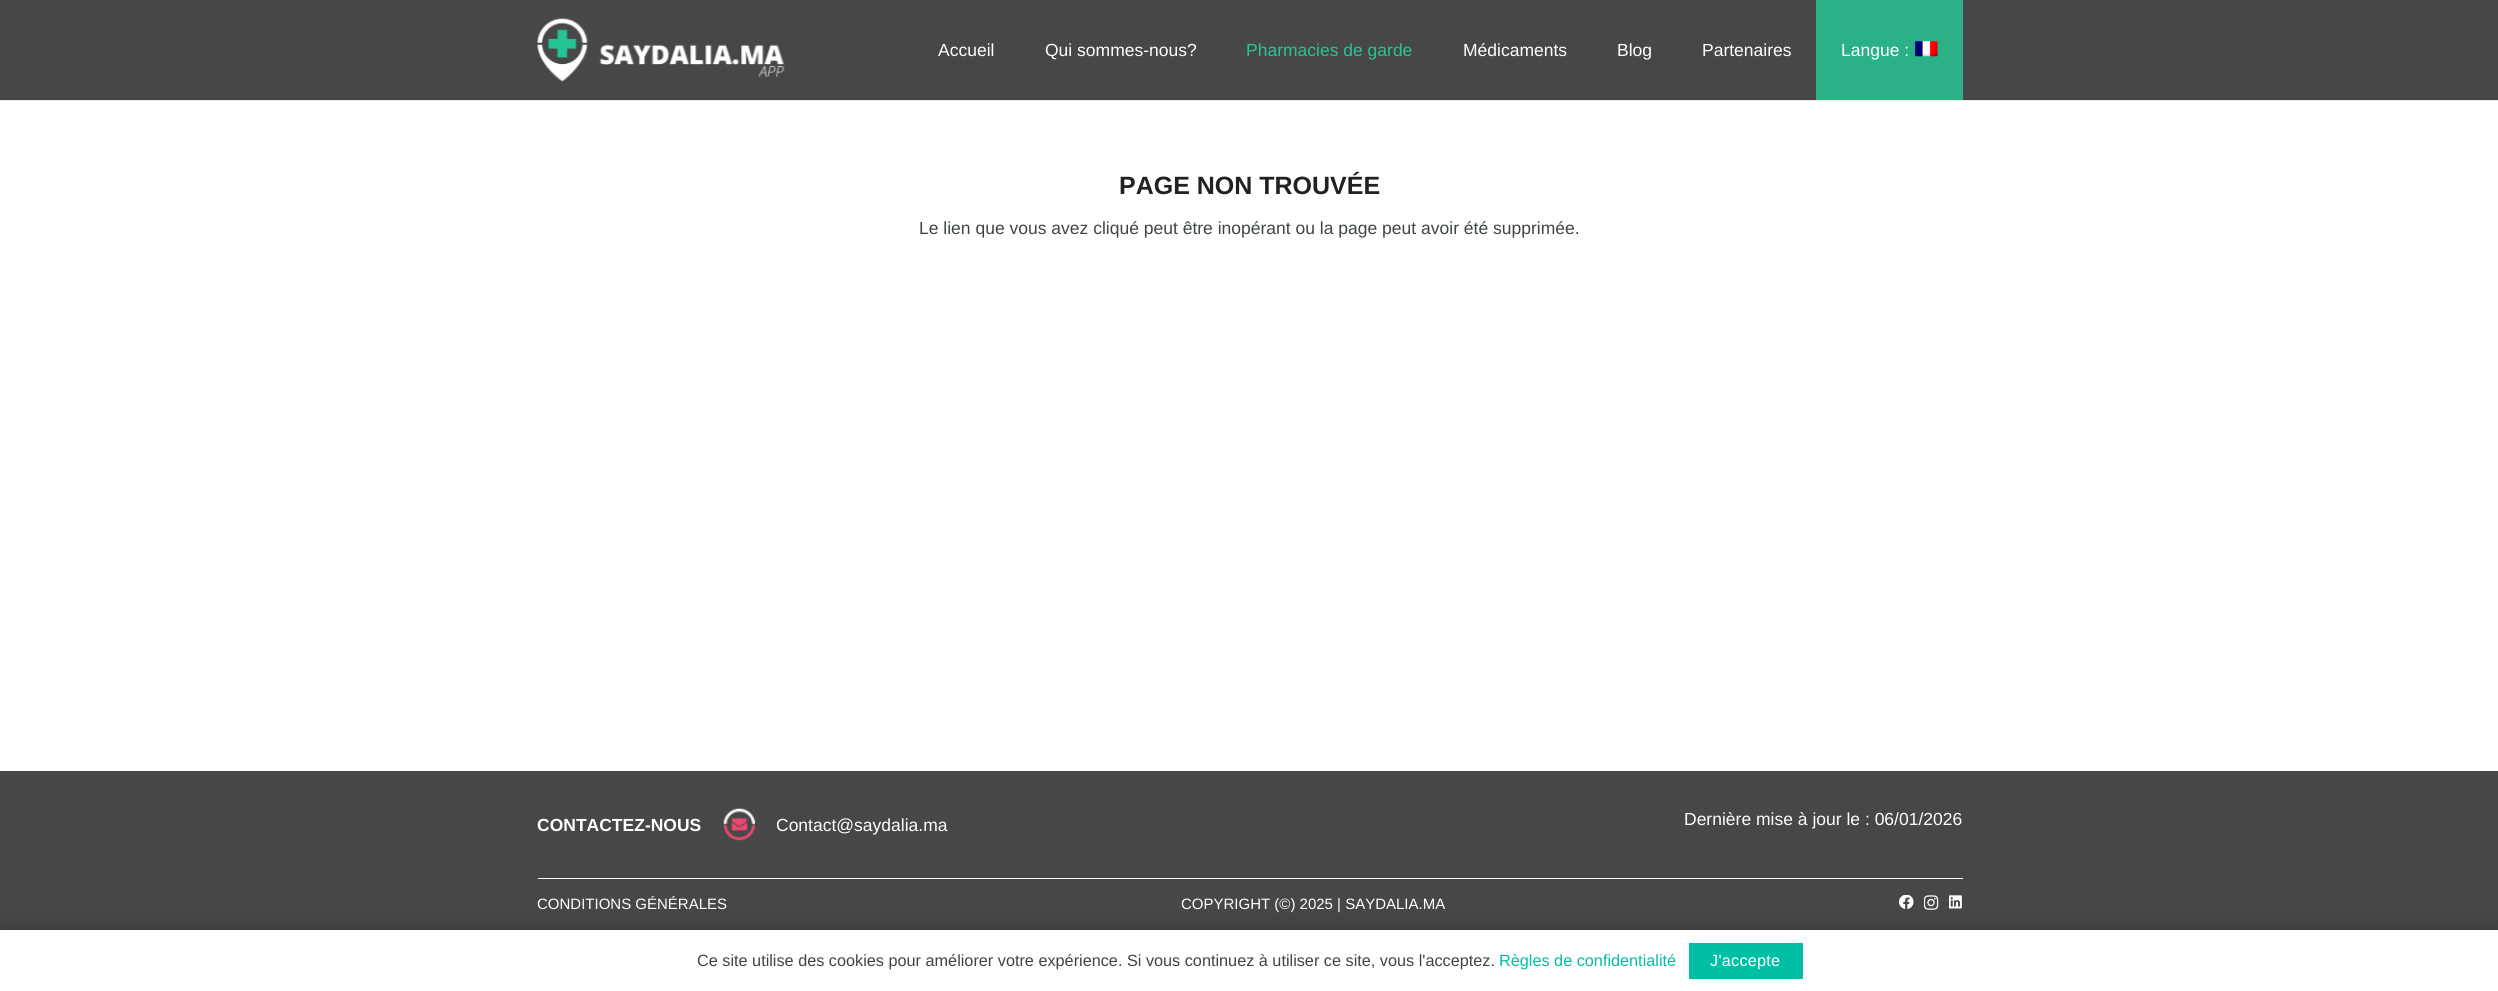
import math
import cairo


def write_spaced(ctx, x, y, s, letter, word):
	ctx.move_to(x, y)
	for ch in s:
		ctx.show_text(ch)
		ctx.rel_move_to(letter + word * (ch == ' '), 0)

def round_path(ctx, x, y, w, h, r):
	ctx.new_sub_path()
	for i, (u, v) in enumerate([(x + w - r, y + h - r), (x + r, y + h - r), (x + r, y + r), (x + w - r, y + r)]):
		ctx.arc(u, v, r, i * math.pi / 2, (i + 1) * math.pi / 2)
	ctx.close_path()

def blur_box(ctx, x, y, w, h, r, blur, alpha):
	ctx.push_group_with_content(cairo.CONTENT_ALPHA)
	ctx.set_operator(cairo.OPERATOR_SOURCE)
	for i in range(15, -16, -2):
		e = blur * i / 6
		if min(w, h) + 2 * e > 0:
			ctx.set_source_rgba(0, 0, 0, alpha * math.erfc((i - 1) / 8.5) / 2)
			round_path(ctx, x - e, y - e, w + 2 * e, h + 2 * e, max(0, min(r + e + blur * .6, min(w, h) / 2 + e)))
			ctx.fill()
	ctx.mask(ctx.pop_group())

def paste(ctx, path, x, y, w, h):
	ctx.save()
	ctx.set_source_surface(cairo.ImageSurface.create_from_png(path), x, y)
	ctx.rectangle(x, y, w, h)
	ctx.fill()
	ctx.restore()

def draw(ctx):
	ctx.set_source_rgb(1, 1, 1)
	ctx.paint()
	ctx.set_source_rgb(0.922, 0.922, 0.922)
	ctx.new_path()
	ctx.move_to(0, 100)
	ctx.line_to(0, 101)
	ctx.line_to(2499, 101)
	ctx.line_to(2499, 1)
	ctx.line_to(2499, 100)
	ctx.close_path()
	ctx.fill()
	ctx.set_source_rgb(0.278, 0.278, 0.278)
	ctx.rectangle(0, 0, 2498, 100)
	ctx.fill()
	paste(ctx, 'media/1.png', 537, 18, 248, 64)
	ctx.select_font_face('Liberation Sans')
	ctx.set_font_size(17.5)
	ctx.set_source_rgb(1, 1, 1)
	ctx.move_to(938, 56)
	ctx.show_text('Accueil')
	ctx.move_to(1045, 56)
	ctx.show_text('Qui sommes-nous?')
	ctx.set_source_rgb(0.149, 0.769, 0.58)
	ctx.move_to(1246, 56)
	ctx.show_text('Pharmacies de garde')
	ctx.set_source_rgb(1, 1, 1)
	for x, y, s in [
		(1463, 56, 'Médicaments'),
		(1617, 56, 'Blog'),
		(1702, 56, 'Partenaires'),
	]:
		ctx.move_to(x, y)
		ctx.show_text(s)
	ctx.set_source_rgb(0.173, 0.69, 0.533)
	ctx.rectangle(1816, 0, 147, 100)
	ctx.fill()
	ctx.set_source_rgb(1, 1, 1)
	ctx.move_to(1841, 56)
	ctx.show_text('Langue :')
	paste(ctx, 'media/2.png', 1914, 41, 24, 16)
	ctx.select_font_face('Liberation Sans', cairo.FONT_SLANT_NORMAL, cairo.FONT_WEIGHT_BOLD)
	ctx.set_font_size(25)
	ctx.set_source_rgb(0.129, 0.129, 0.129)
	ctx.move_to(1119, 194)
	ctx.show_text('PAGE NON TROUVÉE')
	ctx.select_font_face('Liberation Sans')
	ctx.set_font_size(17.5)
	ctx.set_source_rgb(0.247, 0.271, 0.267)
	ctx.move_to(919, 234)
	ctx.show_text('Le lien que vous avez cliqué peut être inopérant ou la page peut avoir été supprimée.')
	ctx.set_source_rgb(0.278, 0.278, 0.278)
	ctx.rectangle(0, 771, 2498, 159)
	ctx.fill()
	ctx.select_font_face('Liberation Sans', cairo.FONT_SLANT_NORMAL, cairo.FONT_WEIGHT_BOLD)
	ctx.set_source_rgb(1, 1, 1)
	ctx.move_to(537, 831)
	ctx.show_text('CONTACTEZ-NOUS')
	paste(ctx, 'media/3.png', 722, 808, 33, 34)
	ctx.select_font_face('Liberation Sans')
	ctx.move_to(776, 831)
	ctx.show_text('Contact@saydalia.ma')
	ctx.move_to(1684, 825)
	ctx.show_text('Dernière mise à jour le : 06/01/2026')
	ctx.rectangle(538, 878, 1425, 1)
	ctx.fill()
	ctx.set_font_size(15)
	ctx.move_to(537, 909)
	ctx.show_text('CONDITIONS GÉNÉRALES')
	ctx.move_to(1181, 909)
	ctx.show_text('COPYRIGHT (©) 2025 | SAYDALIA.MA')
	paste(ctx, 'media/4.png', 1899, 895, 15, 14)
	paste(ctx, 'media/5.png', 1924, 895, 15, 15)
	paste(ctx, 'media/6.png', 1949, 895, 13, 14)
	ctx.set_source_rgb(0, 0, 0)
	blur_box(ctx, 0, 924, 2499, 61, 0, 9.5, 0.15)
	ctx.set_source_rgb(1, 1, 1)
	ctx.rectangle(0, 930, 2498, 61)
	ctx.fill()
	ctx.set_font_size(16.25)
	ctx.set_source_rgb(0.247, 0.271, 0.267)
	ctx.move_to(697, 966)
	ctx.show_text('Ce site utilise des cookies pour améliorer votre expérience. Si vous continuez à utiliser ce site, vous l\'acceptez.')
	ctx.set_source_rgb(0, 0.749, 0.647)
	ctx.move_to(1499, 966)
	ctx.show_text('Règles de confidentialité')
	ctx.rectangle(1689, 943, 114, 36)
	ctx.fill()
	ctx.set_source_rgb(1, 1, 1)
	write_spaced(ctx, 1710, 966, 'J\'accepte', 0.25, 0)


surface = cairo.ImageSurface(cairo.FORMAT_RGB24, 2498, 991)
ctx = cairo.Context(surface)
options = cairo.FontOptions()
options.set_hint_metrics(cairo.HINT_METRICS_OFF)
options.set_hint_style(cairo.HINT_STYLE_NONE)
ctx.set_font_options(options)
ctx.set_miter_limit(4)
draw(ctx)
surface.write_to_png('image.png')
